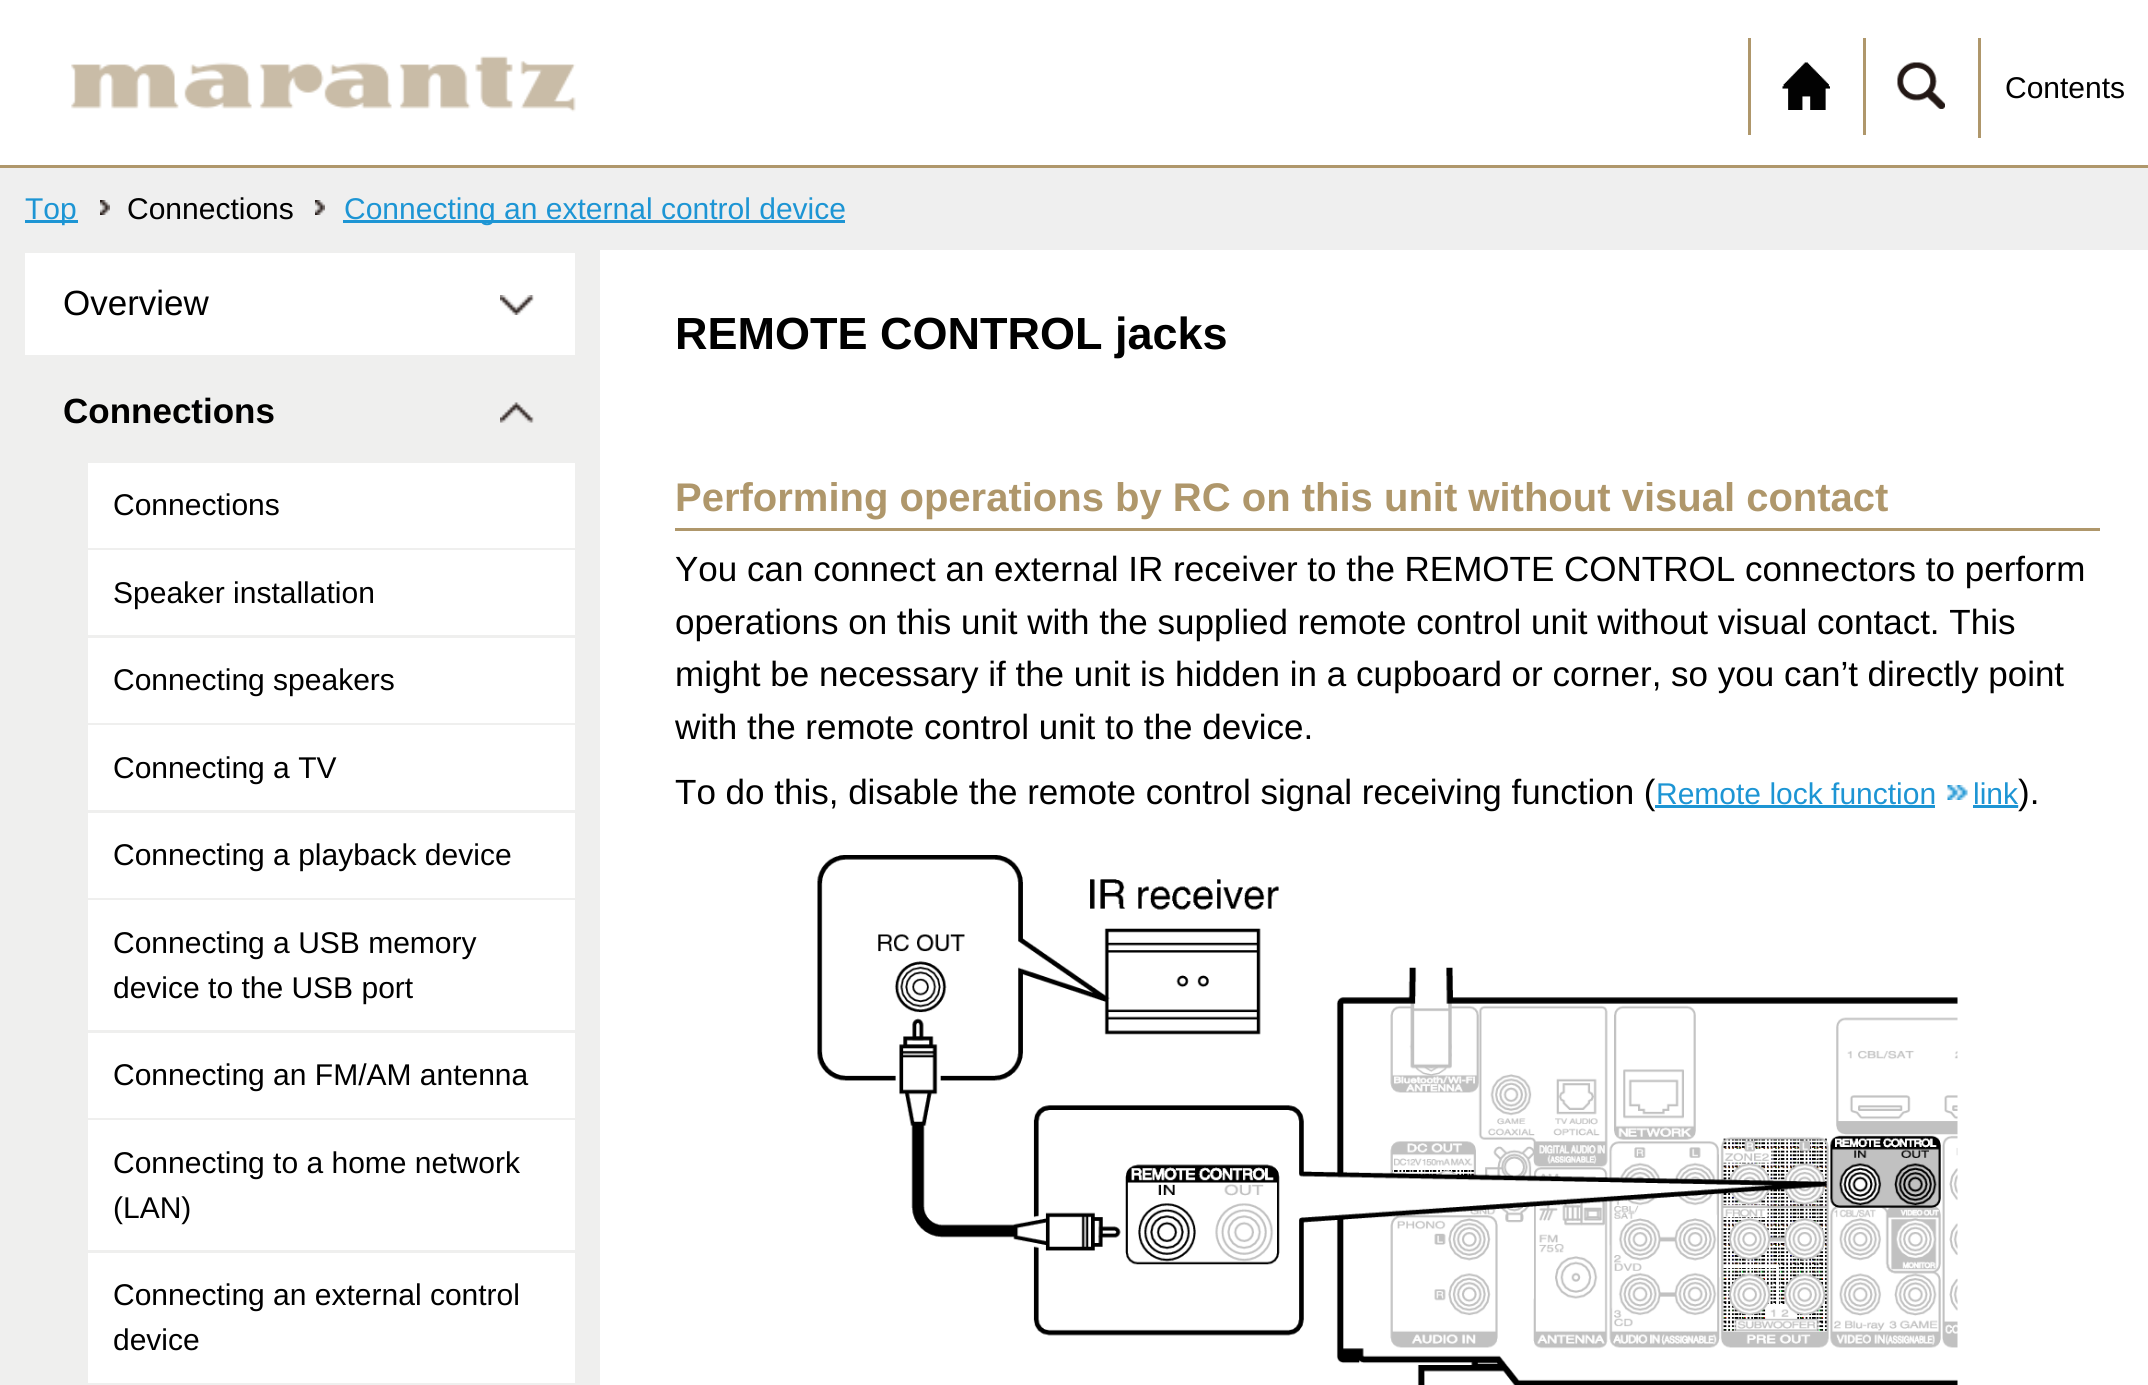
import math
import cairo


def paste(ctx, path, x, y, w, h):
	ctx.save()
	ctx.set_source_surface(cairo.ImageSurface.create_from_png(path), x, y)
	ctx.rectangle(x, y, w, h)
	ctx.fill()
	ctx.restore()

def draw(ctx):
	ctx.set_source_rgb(1, 1, 1)
	ctx.paint()
	ctx.set_source_rgb(0.937, 0.937, 0.933)
	ctx.rectangle(0, 250, 600, 1135)
	ctx.fill()
	paste(ctx, 'media/1.png', 71, 56, 505, 56)
	paste(ctx, 'media/2.png', 1782, 62, 48, 48)
	ctx.set_source_rgb(0.686, 0.592, 0.42)
	ctx.rectangle(1748, 38, 3, 97)
	ctx.fill()
	paste(ctx, 'media/3.png', 1897, 62, 48, 47)
	ctx.rectangle(1863, 38, 3, 97)
	ctx.fill()
	ctx.rectangle(1978, 38, 3, 100)
	ctx.fill()
	ctx.select_font_face('Liberation Sans')
	ctx.set_font_size(30)
	ctx.set_source_rgb(0, 0, 0)
	ctx.move_to(2005, 98)
	ctx.show_text('Contents')
	ctx.set_source_rgb(0.937, 0.937, 0.937)
	ctx.rectangle(0, 168, 2148, 82)
	ctx.fill()
	ctx.set_source_rgb(0.686, 0.592, 0.42)
	ctx.rectangle(0, 165, 2148, 3)
	ctx.fill()
	paste(ctx, 'media/4.png', 100, 200, 10, 15)
	ctx.set_source_rgb(0.114, 0.584, 0.831)
	ctx.rectangle(25, 220, 53, 3)
	ctx.fill()
	ctx.move_to(25, 219)
	ctx.show_text('Top')
	paste(ctx, 'media/4.png', 315, 200, 10, 15)
	ctx.set_source_rgb(0, 0, 0)
	ctx.move_to(127, 219)
	ctx.show_text('Connections')
	ctx.set_source_rgb(0.114, 0.584, 0.831)
	ctx.rectangle(343, 220, 502, 3)
	ctx.fill()
	ctx.move_to(344, 219)
	ctx.show_text('Connecting an external control device')
	ctx.set_source_rgb(1, 1, 1)
	ctx.rectangle(25, 253, 550, 102)
	ctx.fill()
	paste(ctx, 'media/5.png', 500, 295, 34, 20)
	ctx.set_font_size(35)
	ctx.set_source_rgb(0, 0, 0)
	ctx.move_to(63, 315)
	ctx.show_text('Overview')
	paste(ctx, 'media/6.png', 500, 402, 34, 21)
	ctx.select_font_face('Liberation Sans', cairo.FONT_SLANT_NORMAL, cairo.FONT_WEIGHT_BOLD)
	ctx.move_to(63, 423)
	ctx.show_text('Connections')
	ctx.set_source_rgb(1, 1, 1)
	ctx.rectangle(88, 463, 487, 85)
	ctx.fill()
	ctx.select_font_face('Liberation Sans')
	ctx.set_font_size(30)
	ctx.set_source_rgb(0, 0, 0)
	ctx.move_to(113, 515)
	ctx.show_text('Connections')
	ctx.set_source_rgb(1, 1, 1)
	ctx.rectangle(88, 550, 487, 85)
	ctx.fill()
	ctx.set_source_rgb(0, 0, 0)
	ctx.move_to(113, 603)
	ctx.show_text('Speaker installation')
	ctx.set_source_rgb(1, 1, 1)
	ctx.rectangle(88, 638, 487, 85)
	ctx.fill()
	ctx.set_source_rgb(0, 0, 0)
	ctx.move_to(113, 690)
	ctx.show_text('Connecting speakers')
	ctx.set_source_rgb(1, 1, 1)
	ctx.rectangle(88, 725, 487, 85)
	ctx.fill()
	ctx.set_source_rgb(0, 0, 0)
	ctx.move_to(113, 778)
	ctx.show_text('Connecting a TV')
	ctx.set_source_rgb(1, 1, 1)
	ctx.rectangle(88, 813, 487, 85)
	ctx.fill()
	ctx.set_source_rgb(0, 0, 0)
	ctx.move_to(113, 865)
	ctx.show_text('Connecting a playback device')
	ctx.set_source_rgb(1, 1, 1)
	ctx.rectangle(88, 900, 487, 130)
	ctx.fill()
	ctx.set_source_rgb(0, 0, 0)
	ctx.move_to(113, 953)
	ctx.show_text('Connecting a USB memory')
	ctx.move_to(113, 998)
	ctx.show_text('device to the USB port')
	ctx.set_source_rgb(1, 1, 1)
	ctx.rectangle(88, 1033, 487, 85)
	ctx.fill()
	ctx.set_source_rgb(0, 0, 0)
	ctx.move_to(113, 1085)
	ctx.show_text('Connecting an FM/AM antenna')
	ctx.set_source_rgb(1, 1, 1)
	ctx.rectangle(88, 1120, 487, 130)
	ctx.fill()
	ctx.set_source_rgb(0, 0, 0)
	ctx.move_to(113, 1173)
	ctx.show_text('Connecting to a home network')
	ctx.move_to(113, 1218)
	ctx.show_text('(LAN)')
	ctx.set_source_rgb(1, 1, 1)
	ctx.rectangle(88, 1253, 487, 130)
	ctx.fill()
	ctx.set_source_rgb(0, 0, 0)
	ctx.move_to(113, 1305)
	ctx.show_text('Connecting an external control')
	ctx.move_to(113, 1350)
	ctx.show_text('device')
	ctx.select_font_face('Liberation Sans', cairo.FONT_SLANT_NORMAL, cairo.FONT_WEIGHT_BOLD)
	ctx.set_font_size(45)
	ctx.move_to(675, 349)
	ctx.show_text('REMOTE CONTROL jacks')
	ctx.set_source_rgb(0.686, 0.592, 0.42)
	ctx.rectangle(675, 528, 1425, 3)
	ctx.fill()
	ctx.set_font_size(40)
	ctx.move_to(675, 511)
	ctx.show_text('Performing operations by RC on this unit without visual contact')
	ctx.select_font_face('Liberation Sans')
	ctx.set_font_size(35)
	ctx.set_source_rgb(0, 0, 0)
	for x, y, s in [
		(675, 581, 'You can connect an external IR receiver to the REMOTE CONTROL connectors to perform'),
		(675, 634, 'operations on this unit with the supplied remote control unit without visual contact. This'),
		(675, 686, 'might be necessary if the unit is hidden in a cupboard or corner, so you can’t directly point'),
		(675, 739, 'with the remote control unit to the device.'),
		(675, 804, 'To do this, disable the remote control signal receiving function ('),
	]:
		ctx.move_to(x, y)
		ctx.show_text(s)
	ctx.set_font_size(30)
	ctx.set_source_rgb(0.114, 0.584, 0.831)
	ctx.move_to(1656, 804)
	ctx.show_text('Remote lock function')
	ctx.rectangle(1655, 805, 280, 3)
	ctx.fill()
	paste(ctx, 'media/7.png', 1947, 785, 72, 23)
	ctx.move_to(1973, 804)
	ctx.show_text('link')
	ctx.rectangle(1973, 805, 45, 3)
	ctx.fill()
	ctx.set_font_size(35)
	ctx.set_source_rgb(0, 0, 0)
	ctx.move_to(2018, 804)
	ctx.show_text(').')
	paste(ctx, 'media/8.png', 817, 855, 1141, 530)


surface = cairo.ImageSurface(cairo.FORMAT_RGB24, 2148, 1385)
ctx = cairo.Context(surface)
options = cairo.FontOptions()
options.set_hint_metrics(cairo.HINT_METRICS_OFF)
options.set_hint_style(cairo.HINT_STYLE_NONE)
ctx.set_font_options(options)
ctx.set_miter_limit(4)
draw(ctx)
surface.write_to_png('image.png')
